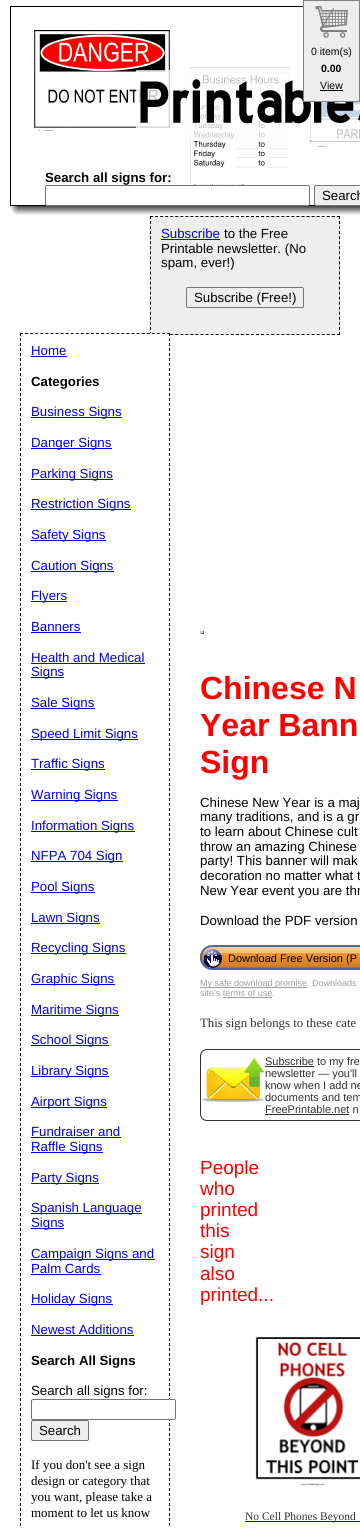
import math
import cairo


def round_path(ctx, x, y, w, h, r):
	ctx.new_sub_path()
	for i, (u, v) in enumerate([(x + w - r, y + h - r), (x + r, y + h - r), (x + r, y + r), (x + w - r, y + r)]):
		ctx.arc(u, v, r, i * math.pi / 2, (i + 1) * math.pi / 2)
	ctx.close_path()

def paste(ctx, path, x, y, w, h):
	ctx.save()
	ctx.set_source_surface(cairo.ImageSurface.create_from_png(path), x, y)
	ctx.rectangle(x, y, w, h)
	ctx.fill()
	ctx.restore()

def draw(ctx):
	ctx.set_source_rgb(1, 1, 1)
	ctx.paint()
	paste(ctx, 'media/2.png', 10, 6, 350, 209)
	ctx.set_source_rgb(0.929, 0.929, 0.929)
	ctx.rectangle(303.5, 0.5, 56, 101)
	ctx.fill_preserve()
	ctx.set_source_rgb(0.502, 0.502, 0.502)
	ctx.set_line_width(1)
	ctx.stroke()
	paste(ctx, 'media/1.png', 315, 6, 33, 32)
	ctx.select_font_face('Liberation Sans')
	ctx.set_font_size(10.5)
	ctx.set_source_rgb(0, 0, 0)
	ctx.move_to(311, 55)
	ctx.show_text('0 item(s)')
	ctx.select_font_face('Liberation Sans', cairo.FONT_SLANT_NORMAL, cairo.FONT_WEIGHT_BOLD)
	ctx.move_to(321, 72)
	ctx.show_text('0.00')
	ctx.select_font_face('Liberation Sans')
	ctx.move_to(320, 89)
	ctx.show_text('View')
	ctx.rectangle(320, 90, 23, 1)
	ctx.fill()
	ctx.select_font_face('Liberation Sans', cairo.FONT_SLANT_NORMAL, cairo.FONT_WEIGHT_BOLD)
	ctx.set_font_size(13.25)
	ctx.move_to(45, 182)
	ctx.show_text('Search all signs for:')
	ctx.set_source_rgb(1, 1, 1)
	round_path(ctx, 45.5, 185.5, 264, 20, 1.5)
	ctx.fill_preserve()
	ctx.set_source_rgb(0.463, 0.463, 0.463)
	ctx.stroke()
	ctx.set_source_rgb(0.937, 0.937, 0.937)
	round_path(ctx, 314.5, 185.5, 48, 20, 1.5)
	ctx.fill_preserve()
	ctx.set_source_rgb(0.463, 0.463, 0.463)
	ctx.stroke()
	ctx.select_font_face('Liberation Sans')
	ctx.set_source_rgb(0, 0, 0)
	ctx.move_to(322, 200)
	ctx.show_text('Search')
	ctx.set_source_rgb(0.933, 0.933, 0.933)
	ctx.rectangle(150, 216, 190, 119)
	ctx.fill()
	ctx.new_path()
	ctx.move_to(150, 216.5)
	ctx.line_to(340, 216.5)
	ctx.set_source_rgb(0, 0, 0)
	ctx.set_dash([3, 2.05])
	ctx.stroke()
	ctx.new_path()
	ctx.move_to(339.5, 216)
	ctx.line_to(339.5, 335)
	ctx.set_dash([3, 2.04])
	ctx.stroke()
	ctx.new_path()
	ctx.move_to(150, 334.5)
	ctx.line_to(340, 334.5)
	ctx.set_dash([3, 2.05])
	ctx.stroke()
	ctx.new_path()
	ctx.move_to(150.5, 216)
	ctx.line_to(150.5, 335)
	ctx.set_dash([3, 2.04])
	ctx.stroke()
	ctx.set_source_rgb(0, 0, 0.933)
	ctx.move_to(161, 238)
	ctx.show_text('Subscribe')
	ctx.rectangle(161, 239, 59, 1)
	ctx.fill()
	ctx.set_source_rgb(0, 0, 0)
	for x, y, s in [
		(224, 238, 'to the Free'),
		(161, 253, 'Printable newsletter. (No'),
		(161, 267, 'spam, ever!)'),
	]:
		ctx.move_to(x, y)
		ctx.show_text(s)
	round_path(ctx, 186.5, 287.5, 117, 20, 1.5)
	ctx.set_source_rgb(0.463, 0.463, 0.463)
	ctx.set_dash([])
	ctx.stroke()
	ctx.set_source_rgb(0, 0, 0)
	ctx.move_to(194, 302)
	ctx.show_text('Subscribe (Free!)')
	ctx.set_source_rgb(1, 1, 1)
	ctx.rectangle(150, 333, 20, 2)
	ctx.fill()
	ctx.new_path()
	ctx.move_to(20, 333.5)
	ctx.line_to(170, 333.5)
	ctx.set_source_rgb(0, 0, 0)
	ctx.set_dash([3, 2.07])
	ctx.stroke()
	ctx.new_path()
	ctx.move_to(169.5, 333)
	ctx.line_to(169.5, 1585)
	ctx.set_dash([3, 2])
	ctx.stroke()
	ctx.new_path()
	ctx.move_to(20.5, 333)
	ctx.line_to(20.5, 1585)
	ctx.stroke()
	ctx.set_source_rgb(0, 0, 0.933)
	ctx.move_to(31, 355)
	ctx.show_text('Home')
	ctx.rectangle(31, 356, 36, 1)
	ctx.fill()
	ctx.select_font_face('Liberation Sans', cairo.FONT_SLANT_NORMAL, cairo.FONT_WEIGHT_BOLD)
	ctx.set_source_rgb(0, 0, 0)
	ctx.move_to(31, 386)
	ctx.show_text('Categories')
	ctx.set_source_rgb(0, 0, 0.933)
	ctx.rectangle(31, 417, 91, 1)
	ctx.fill()
	ctx.select_font_face('Liberation Sans')
	ctx.move_to(31, 416)
	ctx.show_text('Business Signs')
	ctx.rectangle(31, 448, 81, 1)
	ctx.fill()
	ctx.move_to(31, 447)
	ctx.show_text('Danger Signs')
	ctx.rectangle(31, 479, 82, 1)
	ctx.fill()
	ctx.move_to(31, 478)
	ctx.show_text('Parking Signs')
	ctx.rectangle(31, 509, 100, 1)
	ctx.fill()
	ctx.move_to(31, 508)
	ctx.show_text('Restriction Signs')
	ctx.rectangle(31, 540, 75, 1)
	ctx.fill()
	ctx.move_to(31, 539)
	ctx.show_text('Safety Signs')
	ctx.rectangle(31, 571, 83, 1)
	ctx.fill()
	ctx.move_to(31, 570)
	ctx.show_text('Caution Signs')
	ctx.rectangle(31, 601, 36, 1)
	ctx.fill()
	ctx.move_to(31, 600)
	ctx.show_text('Flyers')
	ctx.move_to(31, 631)
	ctx.show_text('Banners')
	ctx.rectangle(31, 632, 50, 1)
	ctx.fill()
	ctx.move_to(31, 662)
	ctx.show_text('Health and Medical')
	ctx.rectangle(31, 663, 114, 1)
	ctx.fill()
	ctx.rectangle(31, 677, 33, 1)
	ctx.fill()
	ctx.move_to(31, 676)
	ctx.show_text('Signs')
	ctx.rectangle(31, 708, 64, 1)
	ctx.fill()
	ctx.move_to(31, 707)
	ctx.show_text('Sale Signs')
	ctx.rectangle(31, 739, 107, 1)
	ctx.fill()
	ctx.move_to(31, 738)
	ctx.show_text('Speed Limit Signs')
	ctx.rectangle(31, 769, 74, 1)
	ctx.fill()
	ctx.move_to(31, 768)
	ctx.show_text('Traffic Signs')
	ctx.rectangle(31, 800, 87, 1)
	ctx.fill()
	ctx.move_to(31, 799)
	ctx.show_text('Warning Signs')
	ctx.rectangle(31, 831, 104, 1)
	ctx.fill()
	ctx.move_to(31, 830)
	ctx.show_text('Information Signs')
	ctx.rectangle(31, 861, 92, 1)
	ctx.fill()
	ctx.move_to(31, 860)
	ctx.show_text('NFPA 704 Sign')
	ctx.rectangle(31, 892, 64, 1)
	ctx.fill()
	ctx.move_to(31, 891)
	ctx.show_text('Pool Signs')
	ctx.rectangle(31, 923, 69, 1)
	ctx.fill()
	ctx.move_to(31, 922)
	ctx.show_text('Lawn Signs')
	ctx.rectangle(31, 953, 95, 1)
	ctx.fill()
	ctx.move_to(31, 952)
	ctx.show_text('Recycling Signs')
	ctx.rectangle(31, 984, 84, 1)
	ctx.fill()
	ctx.move_to(31, 983)
	ctx.show_text('Graphic Signs')
	ctx.rectangle(31, 1015, 88, 1)
	ctx.fill()
	ctx.move_to(31, 1014)
	ctx.show_text('Maritime Signs')
	ctx.rectangle(31, 1045, 78, 1)
	ctx.fill()
	ctx.move_to(31, 1044)
	ctx.show_text('School Signs')
	ctx.rectangle(31, 1076, 78, 1)
	ctx.fill()
	ctx.move_to(31, 1075)
	ctx.show_text('Library Signs')
	ctx.rectangle(31, 1107, 76, 1)
	ctx.fill()
	ctx.move_to(31, 1106)
	ctx.show_text('Airport Signs')
	ctx.move_to(31, 1136)
	ctx.show_text('Fundraiser and')
	ctx.rectangle(31, 1137, 90, 1)
	ctx.fill()
	ctx.rectangle(31, 1152, 72, 1)
	ctx.fill()
	ctx.move_to(31, 1151)
	ctx.show_text('Raffle Signs')
	ctx.rectangle(31, 1183, 68, 1)
	ctx.fill()
	ctx.move_to(31, 1182)
	ctx.show_text('Party Signs')
	ctx.rectangle(31, 1213, 111, 1)
	ctx.fill()
	ctx.move_to(31, 1212)
	ctx.show_text('Spanish Language')
	ctx.rectangle(31, 1228, 33, 1)
	ctx.fill()
	ctx.move_to(31, 1227)
	ctx.show_text('Signs')
	ctx.rectangle(31, 1259, 124, 1)
	ctx.fill()
	ctx.move_to(31, 1258)
	ctx.show_text('Campaign Signs and')
	ctx.move_to(31, 1273)
	ctx.show_text('Palm Cards')
	ctx.rectangle(31, 1274, 70, 1)
	ctx.fill()
	ctx.rectangle(31, 1304, 82, 1)
	ctx.fill()
	ctx.move_to(31, 1303)
	ctx.show_text('Holiday Signs')
	ctx.move_to(31, 1334)
	ctx.show_text('Newest Additions')
	ctx.rectangle(31, 1335, 103, 1)
	ctx.fill()
	ctx.select_font_face('Liberation Sans', cairo.FONT_SLANT_NORMAL, cairo.FONT_WEIGHT_BOLD)
	ctx.set_source_rgb(0, 0, 0)
	ctx.move_to(31, 1365)
	ctx.show_text('Search All Signs')
	ctx.select_font_face('Liberation Sans')
	ctx.move_to(31, 1395)
	ctx.show_text('Search all signs for:')
	ctx.set_source_rgb(1, 1, 1)
	round_path(ctx, 31.5, 1399.5, 144, 20, 1.5)
	ctx.fill_preserve()
	ctx.set_source_rgb(0.463, 0.463, 0.463)
	ctx.set_dash([])
	ctx.stroke()
	ctx.set_source_rgb(0.937, 0.937, 0.937)
	round_path(ctx, 31.5, 1420.5, 57, 20, 1.5)
	ctx.fill_preserve()
	ctx.set_source_rgb(0.463, 0.463, 0.463)
	ctx.stroke()
	ctx.set_source_rgb(0, 0, 0)
	ctx.move_to(39, 1435)
	ctx.show_text('Search')
	ctx.select_font_face('Liberation Serif')
	ctx.set_font_size(13)
	for x, y, s in [
		(31, 1469, 'If you don\'t see a sign'),
		(31, 1485, 'design or category that'),
		(31, 1501, 'you want, please take a'),
		(31, 1517, 'moment to let us know'),
	]:
		ctx.move_to(x, y)
		ctx.show_text(s)
	ctx.set_source_rgb(0.8, 0.8, 0.8)
	ctx.rectangle(200, 631, 4, 1)
	ctx.fill()
	ctx.set_source_rgb(0.4, 0.4, 0.4)
	ctx.rectangle(203, 631, 1, 3)
	ctx.rectangle(200, 633, 4, 1)
	ctx.fill()
	ctx.set_source_rgb(0.8, 0.8, 0.8)
	ctx.rectangle(200, 631, 1, 3)
	ctx.fill()
	ctx.set_source_rgb(0.933, 0.886, 0.878)
	ctx.rectangle(201, 632, 2, 1)
	ctx.fill()
	ctx.select_font_face('Liberation Sans', cairo.FONT_SLANT_NORMAL, cairo.FONT_WEIGHT_BOLD)
	ctx.set_font_size(32)
	ctx.set_source_rgb(1, 0, 0)
	for x, y, s in [
		(200, 699, 'Chinese N'),
		(200, 736, 'Year Bann'),
		(200, 773, 'Sign'),
	]:
		ctx.move_to(x, y)
		ctx.show_text(s)
	ctx.select_font_face('Liberation Sans')
	ctx.set_font_size(13.25)
	ctx.set_source_rgb(0, 0, 0)
	for x, y, s in [
		(200, 807, 'Chinese New Year is a maj'),
		(200, 821, 'many traditions, and is a gr'),
		(200, 836, 'to learn about Chinese cult'),
		(200, 851, 'throw an amazing Chinese'),
		(200, 865, 'party! This banner will mak'),
		(200, 880, 'decoration no matter what t'),
		(200, 895, 'New Year event you are thr'),
		(200, 925, 'Download the PDF version'),
	]:
		ctx.move_to(x, y)
		ctx.show_text(s)
	ctx.save()
	ctx.new_path()
	ctx.move_to(212.5, 945)
	ctx.line_to(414, 945)
	ctx.curve_to(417.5, 945, 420, 947.5, 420, 951)
	ctx.line_to(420, 964)
	ctx.curve_to(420, 967.5, 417.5, 970, 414, 970)
	ctx.line_to(212.5, 970)
	ctx.curve_to(205.5, 970, 200, 964.5, 200, 957.5)
	ctx.curve_to(200, 950.5, 205.5, 945, 212.5, 945)
	ctx.close_path()
	ctx.clip()
	gradient = cairo.LinearGradient(310, 947, 310, 968)
	gradient.add_color_stop_rgba(0, 1, 0.816, 0.62, 1)
	gradient.add_color_stop_rgba(0.15, 1, 0.765, 0.518, 1)
	gradient.add_color_stop_rgba(0.3, 1, 0.765, 0.518, 1)
	gradient.add_color_stop_rgba(0.31, 0.957, 0.584, 0.188, 1)
	gradient.add_color_stop_rgba(0.94, 0.816, 0.494, 0.161, 1)
	gradient.add_color_stop_rgba(0.95, 0.749, 0.455, 0.145, 1)
	gradient.add_color_stop_rgba(1, 0.643, 0.392, 0.125, 1)
	ctx.set_source(gradient)
	ctx.rectangle(200, 947, 160, 21)
	ctx.fill()
	ctx.restore()
	ctx.new_path()
	ctx.move_to(212.5, 946)
	ctx.line_to(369, 946)
	ctx.curve_to(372, 946, 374, 948, 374, 951)
	ctx.line_to(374, 964)
	ctx.curve_to(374, 967, 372, 969, 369, 969)
	ctx.line_to(212.5, 969)
	ctx.curve_to(206, 969, 201, 964, 201, 957.5)
	ctx.curve_to(201, 951, 206, 946, 212.5, 946)
	ctx.close_path()
	ctx.set_source_rgb(0.298, 0.412, 0.643)
	ctx.set_line_width(2)
	ctx.stroke()
	paste(ctx, 'media/3.png', 203, 948, 19, 20)
	ctx.set_font_size(11)
	ctx.set_source_rgb(0, 0, 0)
	ctx.move_to(228, 962)
	ctx.show_text('Download Free Version (P')
	ctx.set_source_rgb(0.62, 0.62, 0.62)
	ctx.rectangle(200, 987, 107, 1)
	ctx.fill()
	ctx.set_font_size(9)
	ctx.move_to(200, 986)
	ctx.show_text('My safe download promise. Downloads')
	ctx.move_to(200, 996)
	ctx.show_text('site\'s terms of use.')
	ctx.rectangle(223, 997, 49, 1)
	ctx.fill()
	ctx.select_font_face('Liberation Serif')
	ctx.set_font_size(12.75)
	ctx.set_source_rgb(0.192, 0.192, 0.192)
	ctx.move_to(200, 1027)
	ctx.show_text('This sign belongs to these cate')
	round_path(ctx, 200.5, 1049.5, 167, 71, 6.5)
	ctx.set_line_width(1)
	ctx.stroke()
	paste(ctx, 'media/4.png', 202, 1057, 63, 46)
	ctx.rectangle(265, 1066, 49, 1)
	ctx.fill()
	ctx.select_font_face('Liberation Sans')
	ctx.set_font_size(11)
	for x, y, s in [
		(265, 1065, 'Subscribe to my fre'),
		(265, 1077, 'newsletter — you\'ll'),
		(265, 1089, 'know when I add ne'),
		(265, 1101, 'documents and tem'),
		(265, 1113, 'FreePrintable.net n'),
	]:
		ctx.move_to(x, y)
		ctx.show_text(s)
	ctx.rectangle(265, 1114, 84, 1)
	ctx.fill()
	ctx.set_font_size(19)
	ctx.set_source_rgb(1, 0, 0)
	for x, y, s in [
		(200, 1174, 'People'),
		(200, 1195, 'who'),
		(200, 1216, 'printed'),
		(200, 1237, 'this'),
		(200, 1258, 'sign'),
		(200, 1280, 'also'),
		(200, 1301, 'printed...'),
	]:
		ctx.move_to(x, y)
		ctx.show_text(s)
	paste(ctx, 'media/5.png', 255, 1337, 105, 149)
	ctx.set_source_rgb(0, 0, 0.933)
	ctx.rectangle(245, 1521, 115, 1)
	ctx.fill()
	ctx.select_font_face('Liberation Serif')
	ctx.set_font_size(11.5)
	ctx.set_source_rgb(0.192, 0.192, 0.192)
	ctx.move_to(245, 1520)
	ctx.show_text('No Cell Phones Beyond')


surface = cairo.ImageSurface(cairo.FORMAT_RGB24, 360, 1528)
ctx = cairo.Context(surface)
options = cairo.FontOptions()
options.set_hint_metrics(cairo.HINT_METRICS_OFF)
options.set_hint_style(cairo.HINT_STYLE_NONE)
ctx.set_font_options(options)
ctx.set_miter_limit(4)
draw(ctx)
surface.write_to_png('image.png')
